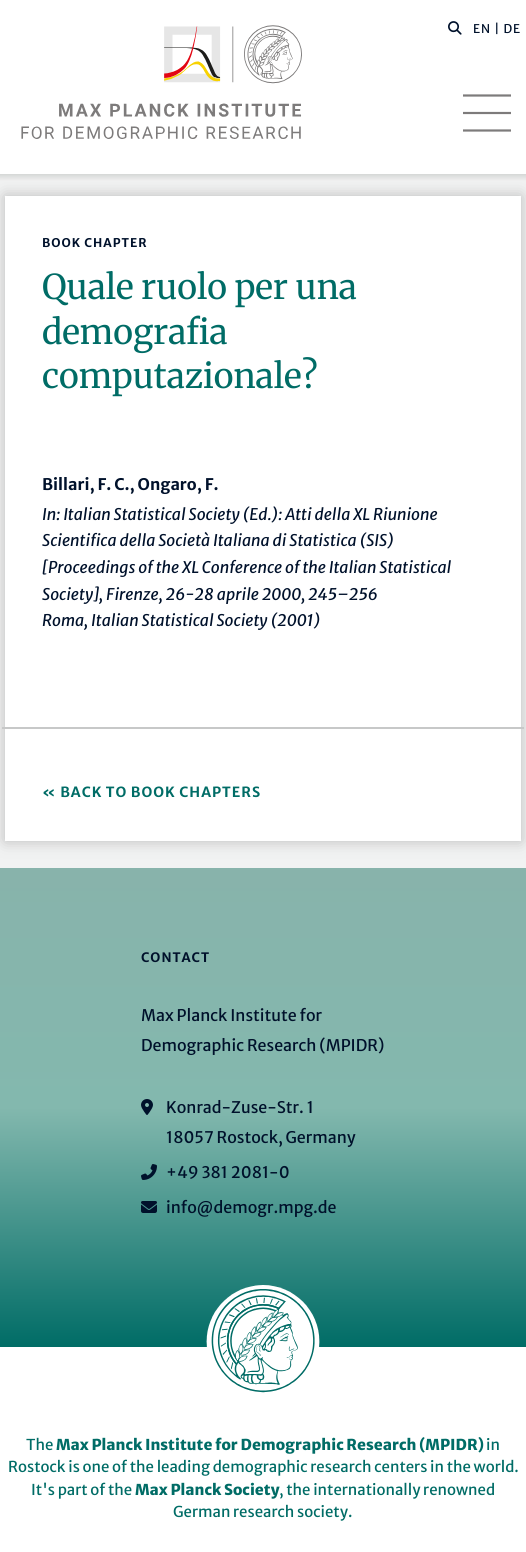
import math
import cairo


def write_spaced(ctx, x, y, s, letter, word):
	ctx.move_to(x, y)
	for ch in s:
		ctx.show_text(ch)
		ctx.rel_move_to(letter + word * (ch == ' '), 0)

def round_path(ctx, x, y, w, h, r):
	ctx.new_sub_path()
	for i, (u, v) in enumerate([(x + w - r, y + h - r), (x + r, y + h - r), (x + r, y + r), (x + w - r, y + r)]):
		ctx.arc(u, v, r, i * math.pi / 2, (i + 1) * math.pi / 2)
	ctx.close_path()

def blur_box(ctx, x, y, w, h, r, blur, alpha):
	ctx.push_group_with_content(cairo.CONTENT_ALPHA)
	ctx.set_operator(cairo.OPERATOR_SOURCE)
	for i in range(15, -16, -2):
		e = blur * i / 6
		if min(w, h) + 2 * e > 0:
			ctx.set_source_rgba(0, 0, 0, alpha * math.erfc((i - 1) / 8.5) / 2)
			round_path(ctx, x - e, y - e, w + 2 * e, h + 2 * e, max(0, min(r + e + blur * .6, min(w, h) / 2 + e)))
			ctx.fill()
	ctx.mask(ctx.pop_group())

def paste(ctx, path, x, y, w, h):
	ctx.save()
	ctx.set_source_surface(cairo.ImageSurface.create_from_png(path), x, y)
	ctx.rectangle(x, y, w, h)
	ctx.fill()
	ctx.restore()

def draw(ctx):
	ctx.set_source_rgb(1, 1, 1)
	ctx.paint()
	paste(ctx, 'media/1.png', 21, 25, 281, 114)
	paste(ctx, 'media/2.png', 448, 21, 14, 14)
	ctx.select_font_face('Merriweather Sans')
	ctx.set_font_size(12)
	ctx.set_source_rgb(0, 0.067, 0.169)
	write_spaced(ctx, 473, 33, 'EN | DE', 1, 0)
	ctx.new_path()
	ctx.move_to(463, 95.5)
	ctx.line_to(511, 95.5)
	ctx.move_to(463, 113)
	ctx.line_to(511, 113)
	ctx.move_to(463, 130.5)
	ctx.line_to(511, 130.5)
	ctx.set_source_rgb(0.49, 0.482, 0.482)
	ctx.set_line_width(2.2)
	ctx.stroke()
	gradient = cairo.LinearGradient(263, 174, 263, 181)
	gradient.add_color_stop_rgba(0, 0.835, 0.843, 0.839, 1)
	gradient.add_color_stop_rgba(1, 0.949, 0.949, 0.949, 1)
	ctx.set_source(gradient)
	ctx.rectangle(0, 174, 526, 7)
	ctx.fill()
	ctx.set_source_rgb(0.945, 0.949, 0.949)
	ctx.rectangle(0, 181, 526, 687)
	ctx.fill()
	ctx.set_source_rgb(0.733, 0.733, 0.733)
	blur_box(ctx, 5, 196, 516, 645, 0, 7.5, 1)
	ctx.set_source_rgb(1, 1, 1)
	ctx.rectangle(5, 196, 516, 645)
	ctx.fill()
	ctx.select_font_face('Merriweather Sans', cairo.FONT_SLANT_NORMAL, cairo.FONT_WEIGHT_BOLD)
	ctx.set_source_rgb(0, 0.067, 0.169)
	write_spaced(ctx, 42, 247, 'BOOK CHAPTER', 1, 0)
	ctx.select_font_face('Merriweather')
	ctx.set_font_size(34.25)
	ctx.set_source_rgb(0, 0.424, 0.4)
	for x, y, s in [
		(42, 299, 'Quale ruolo per una'),
		(42, 344, 'demografia'),
		(42, 388, 'computazionale?'),
	]:
		ctx.move_to(x, y)
		ctx.show_text(s)
	ctx.select_font_face('Merriweather Sans', cairo.FONT_SLANT_NORMAL, cairo.FONT_WEIGHT_BOLD)
	ctx.set_font_size(16)
	ctx.set_source_rgb(0, 0.067, 0.169)
	ctx.move_to(42, 490)
	ctx.show_text('Billari, F. C., Ongaro, F.')
	ctx.select_font_face('Merriweather Sans', cairo.FONT_SLANT_ITALIC)
	for x, y, s in [
		(42, 520, 'In: Italian Statistical Society (Ed.): Atti della XL Riunione'),
		(42, 546, 'Scientifica della Società Italiana di Statistica (SIS)'),
		(42, 573, '[Proceedings of the XL Conference of the Italian Statistical'),
		(42, 600, 'Society], Firenze, 26-28 aprile 2000, 245–256'),
		(42, 626, 'Roma, Italian Statistical Society (2001)'),
	]:
		ctx.move_to(x, y)
		ctx.show_text(s)
	ctx.set_source_rgb(0.78, 0.784, 0.784)
	ctx.rectangle(2, 727, 522, 2)
	ctx.fill()
	ctx.select_font_face('Merriweather Sans', cairo.FONT_SLANT_NORMAL, cairo.FONT_WEIGHT_BOLD)
	ctx.set_font_size(14)
	ctx.set_source_rgb(0, 0.424, 0.4)
	write_spaced(ctx, 42, 797, '« BACK TO BOOK CHAPTERS', 1, 0)
	gradient = cairo.LinearGradient(263, 868, 263, 1347)
	gradient.add_color_stop_rgba(0, 0.533, 0.702, 0.671, 1)
	gradient.add_color_stop_rgba(0.5, 0.514, 0.722, 0.682, 1)
	gradient.add_color_stop_rgba(1, 0, 0.424, 0.4, 1)
	ctx.set_source(gradient)
	ctx.rectangle(0, 868, 526, 479)
	ctx.fill()
	ctx.set_font_size(13)
	ctx.set_source_rgb(0, 0.067, 0.169)
	write_spaced(ctx, 141, 962, 'CONTACT', 1, 0)
	ctx.select_font_face('Merriweather Sans')
	ctx.set_font_size(16)
	ctx.move_to(141, 1021)
	ctx.show_text('Max Planck Institute for')
	ctx.move_to(141, 1051)
	ctx.show_text('Demographic Research (MPIDR)')
	paste(ctx, 'media/3.png', 141, 1099, 12, 16)
	ctx.move_to(166, 1113)
	ctx.show_text('Konrad-Zuse-Str. 1')
	ctx.move_to(166, 1143)
	ctx.show_text('18057 Rostock, Germany')
	paste(ctx, 'media/4.png', 141, 1164, 16, 16)
	ctx.move_to(166, 1178)
	ctx.show_text('+49 381 2081-0')
	paste(ctx, 'media/5.png', 141, 1201, 16, 12)
	ctx.move_to(166, 1213)
	ctx.show_text('info@demogr.mpg.de')
	paste(ctx, 'media/6.png', 206, 1285, 114, 108)
	ctx.set_font_size(15)
	ctx.set_source_rgb(0, 0.424, 0.4)
	ctx.move_to(26, 1450)
	ctx.show_text('The')
	ctx.select_font_face('Merriweather Sans ExtraBold')
	ctx.move_to(56, 1450)
	ctx.show_text('Max Planck Institute for Demographic Research (MPIDR)')
	ctx.select_font_face('Merriweather Sans')
	for x, y, s in [
		(486, 1450, 'in'),
		(8, 1472, 'Rostock is one of the leading demographic research centers in the world.'),
		(31, 1495, 'It\'s part of the'),
	]:
		ctx.move_to(x, y)
		ctx.show_text(s)
	ctx.select_font_face('Merriweather Sans ExtraBold')
	ctx.move_to(135, 1495)
	ctx.show_text('Max Planck Society')
	ctx.select_font_face('Merriweather Sans')
	ctx.move_to(279, 1495)
	ctx.show_text(', the internationally renowned')
	ctx.move_to(173, 1517)
	ctx.show_text('German research society.')


surface = cairo.ImageSurface(cairo.FORMAT_RGB24, 526, 1552)
ctx = cairo.Context(surface)
options = cairo.FontOptions()
options.set_hint_metrics(cairo.HINT_METRICS_OFF)
options.set_hint_style(cairo.HINT_STYLE_NONE)
ctx.set_font_options(options)
ctx.set_miter_limit(4)
draw(ctx)
surface.write_to_png('image.png')
